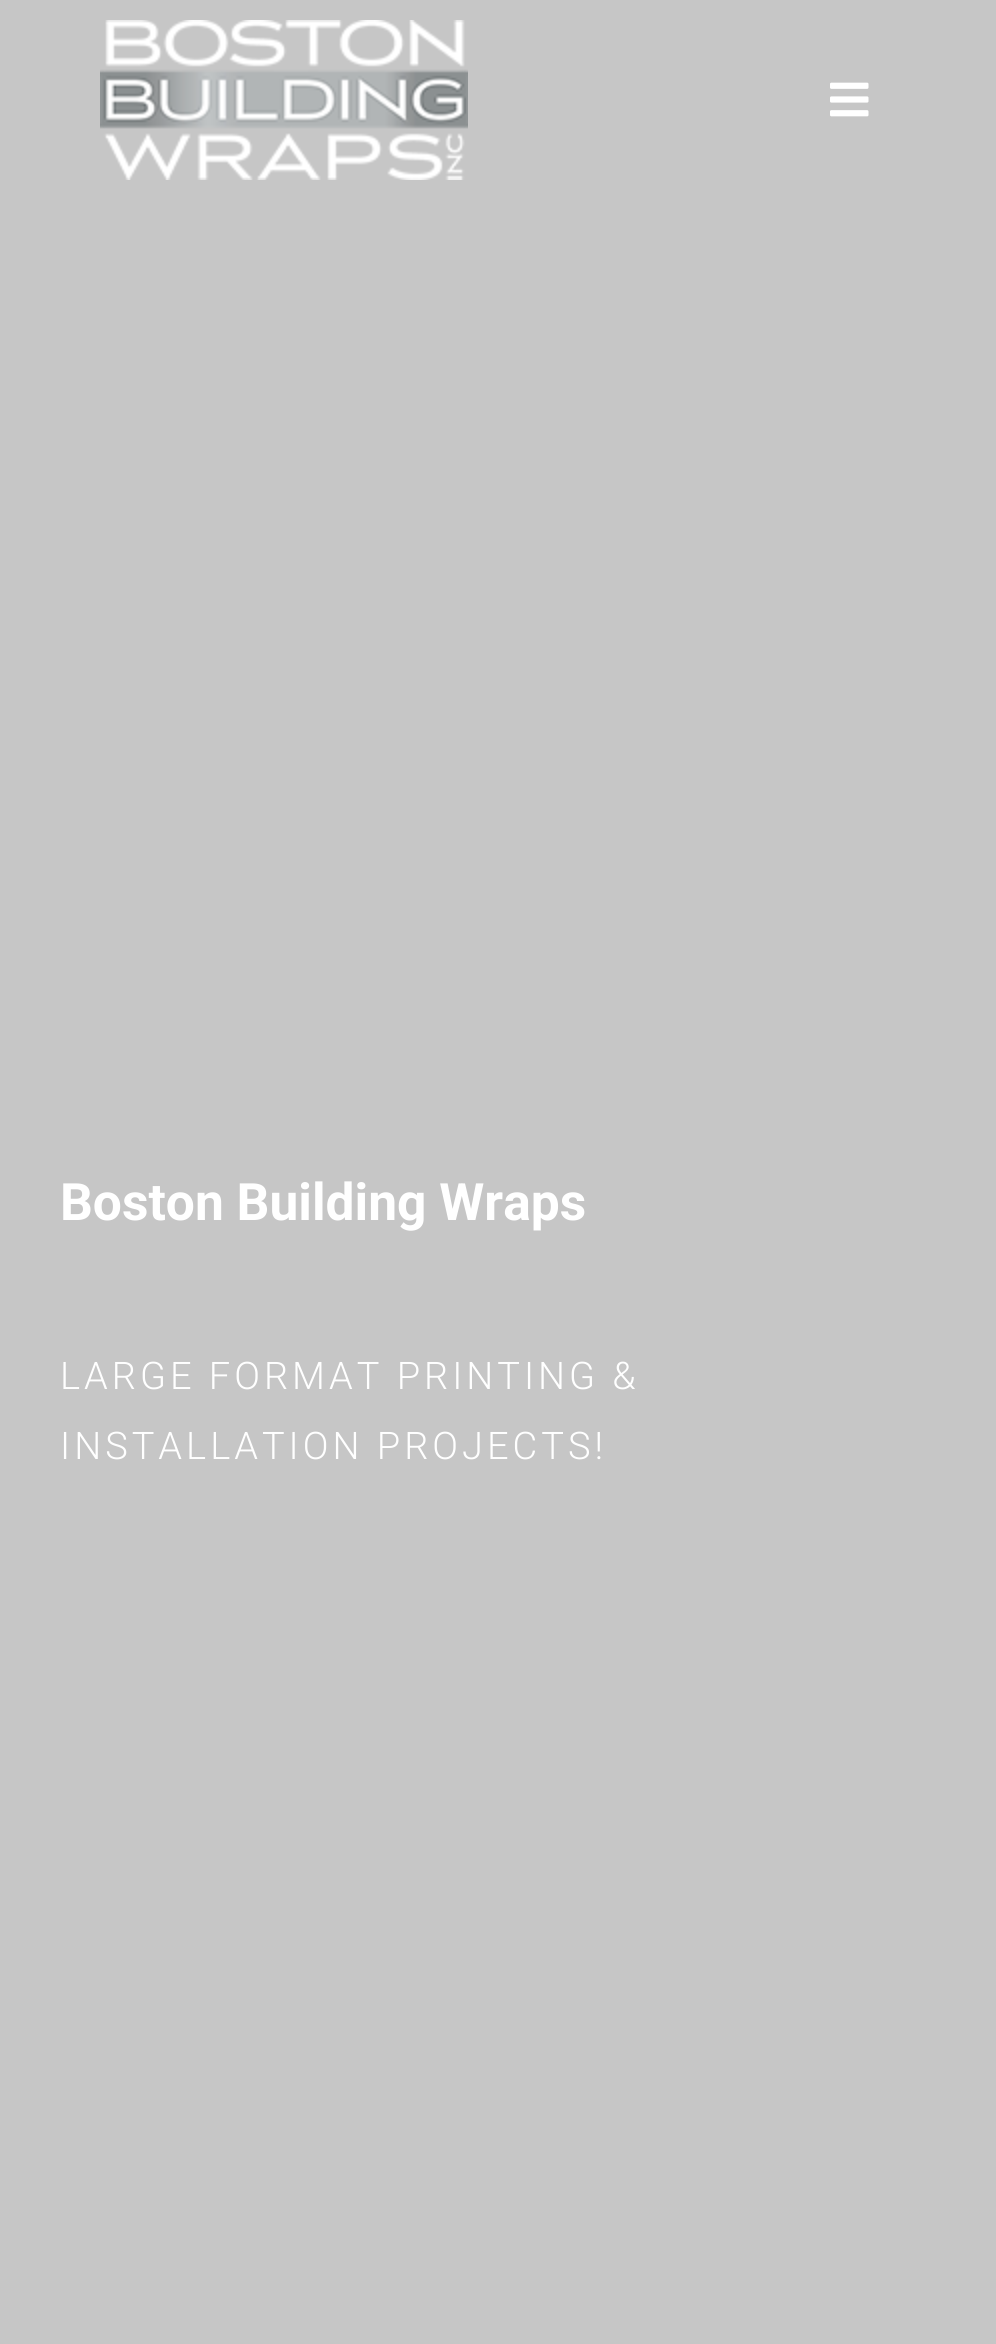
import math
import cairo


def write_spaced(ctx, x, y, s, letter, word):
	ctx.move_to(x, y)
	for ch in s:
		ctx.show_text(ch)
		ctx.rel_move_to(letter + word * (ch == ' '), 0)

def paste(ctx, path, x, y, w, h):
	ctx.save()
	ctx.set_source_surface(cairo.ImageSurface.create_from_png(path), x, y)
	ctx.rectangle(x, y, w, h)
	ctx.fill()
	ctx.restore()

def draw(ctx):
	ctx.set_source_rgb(0.776, 0.776, 0.776)
	ctx.paint()
	paste(ctx, 'media/1.png', 100, 20, 368, 160)
	paste(ctx, 'media/2.png', 830, 82, 39, 35)
	ctx.select_font_face('Roboto', cairo.FONT_SLANT_NORMAL, cairo.FONT_WEIGHT_BOLD)
	ctx.set_font_size(51.5)
	ctx.set_source_rgb(1, 1, 1)
	ctx.move_to(60, 1220)
	ctx.show_text('Boston Building Wraps')
	ctx.select_font_face('Roboto Light')
	ctx.set_font_size(38)
	write_spaced(ctx, 60, 1389, 'LARGE FORMAT PRINTING &', 4, 0)
	write_spaced(ctx, 60, 1459, 'INSTALLATION PROJECTS!', 4, 0)


surface = cairo.ImageSurface(cairo.FORMAT_RGB24, 996, 2344)
ctx = cairo.Context(surface)
options = cairo.FontOptions()
options.set_hint_metrics(cairo.HINT_METRICS_OFF)
options.set_hint_style(cairo.HINT_STYLE_NONE)
ctx.set_font_options(options)
ctx.set_miter_limit(4)
draw(ctx)
surface.write_to_png('image.png')
